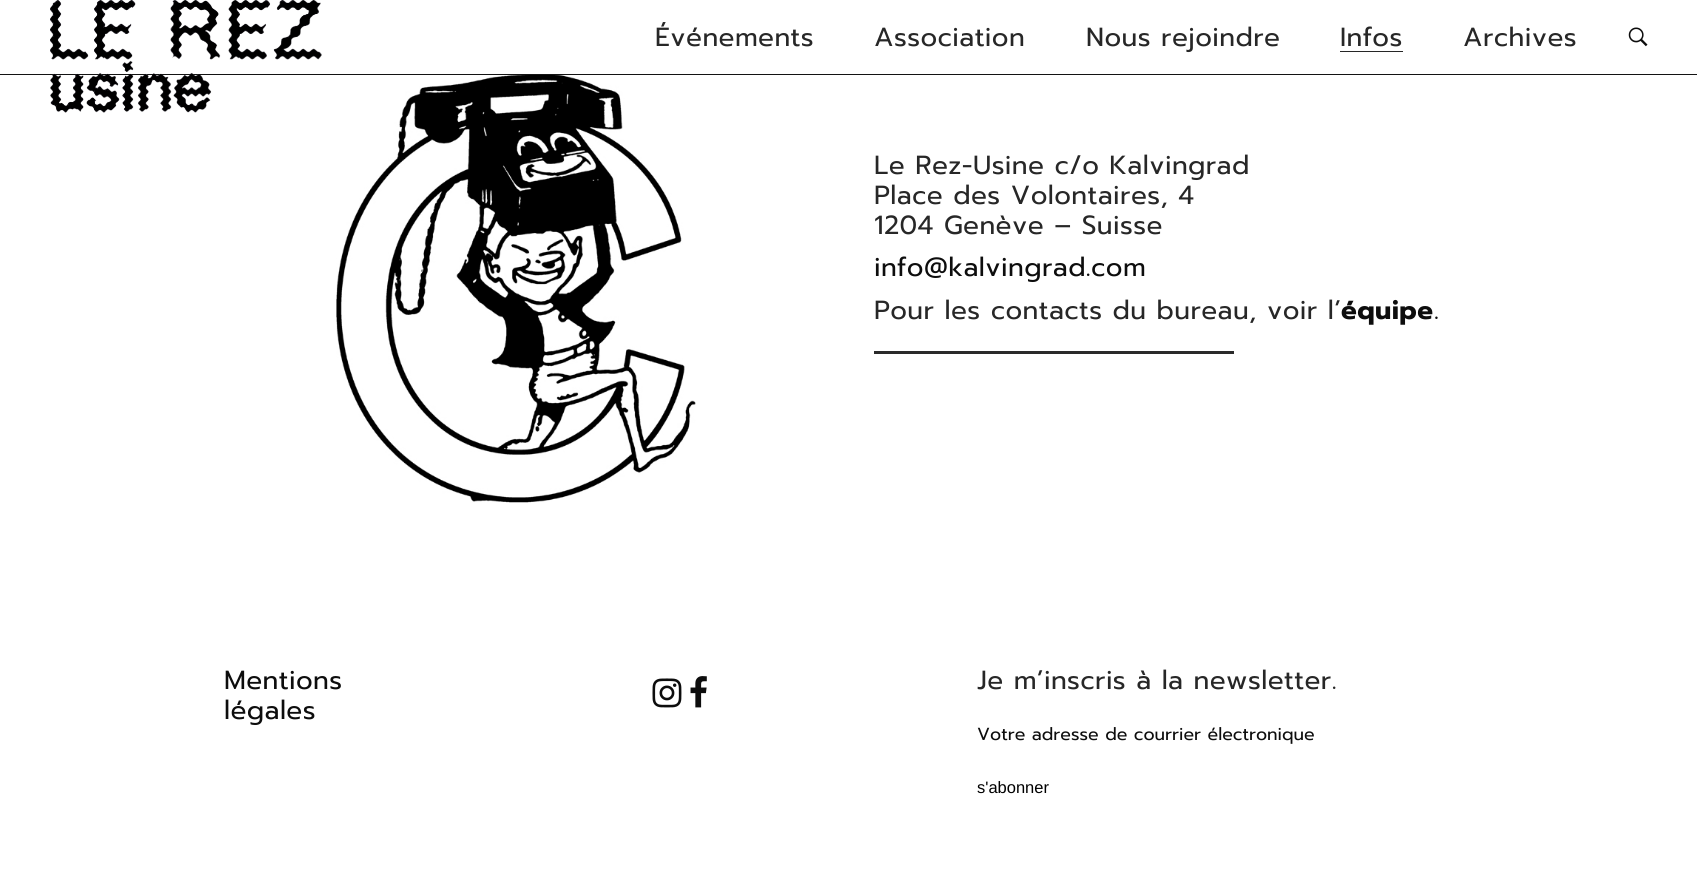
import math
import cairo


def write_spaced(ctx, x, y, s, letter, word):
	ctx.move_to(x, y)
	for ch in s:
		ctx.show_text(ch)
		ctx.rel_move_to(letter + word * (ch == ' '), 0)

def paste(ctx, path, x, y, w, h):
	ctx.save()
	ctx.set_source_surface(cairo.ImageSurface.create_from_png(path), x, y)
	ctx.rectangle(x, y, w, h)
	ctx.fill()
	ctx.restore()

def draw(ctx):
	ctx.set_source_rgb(1, 1, 1)
	ctx.paint()
	ctx.set_source_rgb(0.075, 0.075, 0.075)
	ctx.rectangle(0, 74, 1697, 1)
	ctx.fill()
	paste(ctx, 'media/1.png', 50, 0, 272, 113)
	ctx.select_font_face('Prompt')
	ctx.set_font_size(26.25)
	ctx.set_source_rgb(0.153, 0.153, 0.153)
	for x, y, s in [
		(655, 46, 'Événements'),
		(874, 46, 'Association'),
		(1086, 46, 'Nous rejoindre'),
		(1340, 46, 'Infos'),
	]:
		write_spaced(ctx, x, y, s, 0.4, 0)
	ctx.rectangle(1340, 51, 63, 1)
	ctx.fill()
	write_spaced(ctx, 1463, 46, 'Archives', 0.4, 0)
	paste(ctx, 'media/2.png', 1628, 27, 20, 20)
	paste(ctx, 'media/3.png', 336, 75, 360, 428)
	for x, y, s in [
		(874, 174, 'Le Rez-Usine c/o Kalvingrad'),
		(874, 204, 'Place des Volontaires, 4'),
		(874, 234, '1204 Genève – Suisse'),
	]:
		write_spaced(ctx, x, y, s, 0.4, 0)
	ctx.set_source_rgb(0.051, 0.051, 0.051)
	write_spaced(ctx, 874, 276, 'info@kalvingrad.com', 0.4, 0)
	ctx.set_source_rgb(0.153, 0.153, 0.153)
	write_spaced(ctx, 874, 319, 'Pour les contacts du bureau, voir l’', 0.4, 0)
	ctx.select_font_face('Prompt', cairo.FONT_SLANT_NORMAL, cairo.FONT_WEIGHT_BOLD)
	ctx.set_source_rgb(0.051, 0.051, 0.051)
	write_spaced(ctx, 1341, 319, 'équipe', 0.4, 0)
	ctx.select_font_face('Prompt')
	write_spaced(ctx, 1434, 319, '.', 0.4, 0)
	ctx.set_source_rgb(0.165, 0.165, 0.165)
	ctx.rectangle(874, 351, 360, 3)
	ctx.fill()
	ctx.set_source_rgb(0.051, 0.051, 0.051)
	write_spaced(ctx, 224, 689, 'Mentions', 0.4, 0)
	write_spaced(ctx, 224, 719, 'légales', 0.4, 0)
	paste(ctx, 'media/4.png', 652, 678, 30, 30)
	paste(ctx, 'media/5.png', 690, 676, 17, 32)
	ctx.set_source_rgb(0.153, 0.153, 0.153)
	write_spaced(ctx, 977, 689, 'Je m’inscris à la newsletter.', 0.4, 0)
	ctx.set_font_size(17.5)
	ctx.set_source_rgb(0.051, 0.051, 0.051)
	ctx.move_to(977, 740)
	ctx.show_text('Votre adresse de courrier électronique')
	ctx.select_font_face('Liberation Sans')
	ctx.set_font_size(16.5)
	ctx.set_source_rgb(0, 0, 0)
	ctx.move_to(977, 793)
	ctx.show_text('s\'abonner')


surface = cairo.ImageSurface(cairo.FORMAT_RGB24, 1697, 889)
ctx = cairo.Context(surface)
options = cairo.FontOptions()
options.set_hint_metrics(cairo.HINT_METRICS_OFF)
options.set_hint_style(cairo.HINT_STYLE_NONE)
ctx.set_font_options(options)
ctx.set_miter_limit(4)
draw(ctx)
surface.write_to_png('image.png')
